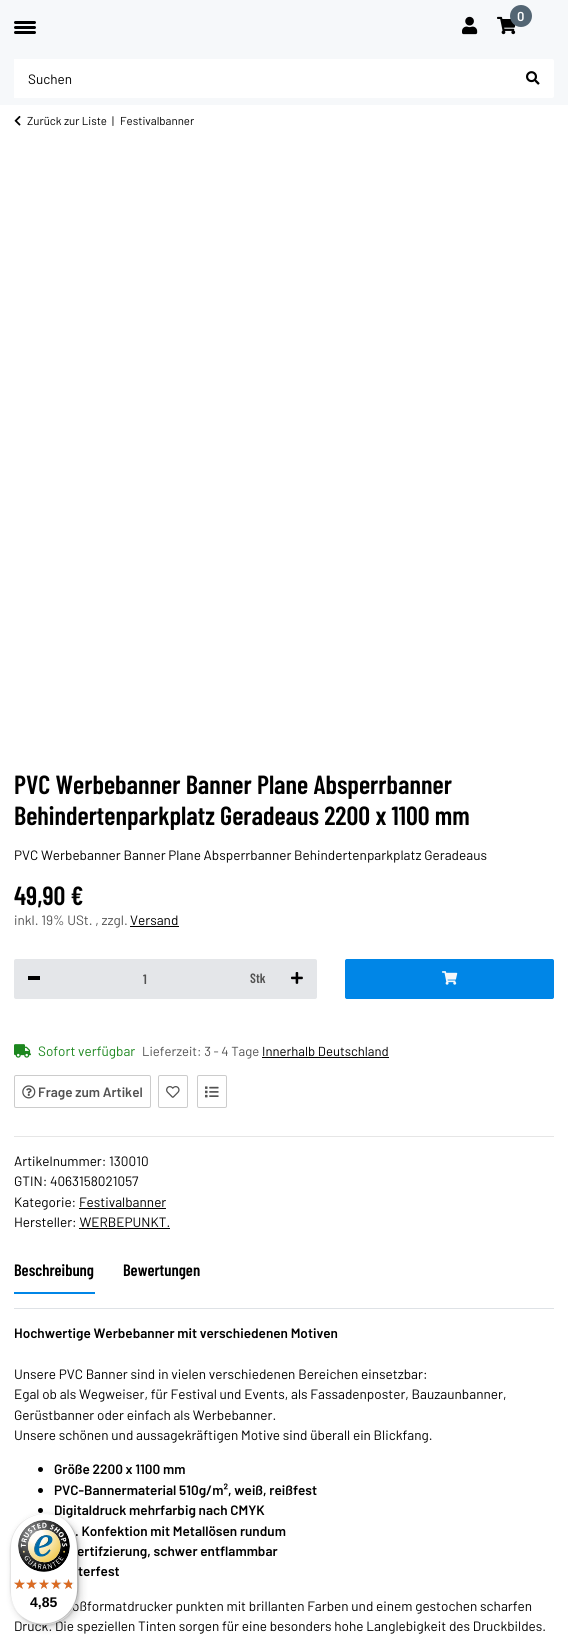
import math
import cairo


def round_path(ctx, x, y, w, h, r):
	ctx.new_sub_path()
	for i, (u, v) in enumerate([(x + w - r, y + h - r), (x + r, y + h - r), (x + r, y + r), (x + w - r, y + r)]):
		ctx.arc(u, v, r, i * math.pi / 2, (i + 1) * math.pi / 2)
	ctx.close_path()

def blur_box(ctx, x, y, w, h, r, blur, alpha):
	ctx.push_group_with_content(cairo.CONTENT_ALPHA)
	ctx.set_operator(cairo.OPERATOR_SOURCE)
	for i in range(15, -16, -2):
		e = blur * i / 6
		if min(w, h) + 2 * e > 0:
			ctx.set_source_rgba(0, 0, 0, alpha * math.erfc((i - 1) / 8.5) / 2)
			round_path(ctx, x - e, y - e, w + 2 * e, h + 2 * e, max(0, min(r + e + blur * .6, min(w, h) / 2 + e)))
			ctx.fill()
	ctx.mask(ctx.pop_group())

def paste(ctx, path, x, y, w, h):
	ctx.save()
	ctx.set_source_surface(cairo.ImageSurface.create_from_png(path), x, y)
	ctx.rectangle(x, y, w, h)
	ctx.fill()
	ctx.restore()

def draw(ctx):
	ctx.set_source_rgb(1, 1, 1)
	ctx.paint()
	ctx.set_source_rgb(0.961, 0.969, 0.98)
	ctx.rectangle(0, 0, 568, 105)
	ctx.fill()
	paste(ctx, 'media/1.png', 462, 16, 16, 19)
	paste(ctx, 'media/2.png', 497, 16, 19, 19)
	ctx.set_source_rgb(0.325, 0.396, 0.451)
	ctx.arc(521, 16, 11, 0, 2 * math.pi)
	ctx.fill()
	ctx.select_font_face('Barlow SemiBold')
	ctx.set_font_size(13)
	ctx.set_source_rgb(1, 1, 1)
	ctx.move_to(517, 21)
	ctx.show_text('0')
	ctx.set_source_rgb(0, 0, 0)
	round_path(ctx, 14, 26, 22, 3, 1.5)
	ctx.fill()
	round_path(ctx, 14, 21, 22, 3, 1.5)
	ctx.fill()
	round_path(ctx, 14, 31, 22, 3, 1.5)
	ctx.fill()
	ctx.set_source_rgb(1, 1, 1)
	ctx.rectangle(14.5, 59.5, 498, 38)
	ctx.fill_preserve()
	ctx.set_line_width(1)
	ctx.stroke()
	ctx.select_font_face('Barlow')
	ctx.set_font_size(13.55)
	ctx.set_source_rgb(0, 0, 0)
	ctx.move_to(28, 84)
	ctx.show_text('Suchen')
	ctx.set_source_rgb(1, 1, 1)
	ctx.new_path()
	ctx.move_to(512, 59)
	ctx.line_to(552, 59)
	ctx.curve_to(553, 59, 554, 60, 554, 61)
	ctx.line_to(554, 96)
	ctx.curve_to(554, 97, 553, 98, 552, 98)
	ctx.line_to(512, 98)
	ctx.close_path()
	ctx.fill()
	paste(ctx, 'media/3.png', 526, 71, 14, 14)
	paste(ctx, 'media/4.png', 14, 115, 7, 11)
	ctx.set_font_size(11.5)
	ctx.set_source_rgb(0, 0, 0)
	for x, y, s in [
		(27, 125, 'Zurück zur Liste'),
		(112, 125, '|'),
		(120, 125, 'Festivalbanner'),
	]:
		ctx.move_to(x, y)
		ctx.show_text(s)
	ctx.select_font_face('Barlow Condensed SemiBold')
	ctx.set_font_size(26.25)
	ctx.move_to(14, 794)
	ctx.show_text('PVC Werbebanner Banner Plane Absperrbanner')
	ctx.move_to(14, 825)
	ctx.show_text('Behindertenparkplatz Geradeaus 2200 x 1100 mm')
	ctx.select_font_face('Barlow')
	ctx.set_font_size(13.55)
	ctx.move_to(14, 860)
	ctx.show_text('PVC Werbebanner Banner Plane Absperrbanner Behindertenparkplatz Geradeaus')
	ctx.select_font_face('Barlow Condensed SemiBold')
	ctx.set_font_size(26.25)
	ctx.move_to(14, 905)
	ctx.show_text('49,90 €')
	ctx.select_font_face('Barlow')
	ctx.set_font_size(13.55)
	ctx.set_source_rgb(0.322, 0.322, 0.322)
	ctx.move_to(14, 925)
	ctx.show_text('inkl. 19% USt. , zzgl.')
	ctx.set_source_rgb(0, 0, 0)
	ctx.move_to(130, 925)
	ctx.show_text('Versand')
	ctx.rectangle(130, 926, 49, 1)
	ctx.fill()
	ctx.set_source_rgb(0.894, 0.902, 0.914)
	round_path(ctx, 14, 959, 303, 40, 2)
	ctx.fill()
	ctx.set_source_rgb(0, 0, 0)
	ctx.rectangle(28, 976, 12, 4)
	ctx.fill()
	ctx.select_font_face('Barlow Condensed SemiBold')
	ctx.set_source_rgb(0.322, 0.322, 0.322)
	ctx.move_to(143, 984)
	ctx.show_text('1')
	ctx.move_to(250, 983)
	ctx.show_text('Stk')
	paste(ctx, 'media/5.png', 291, 972, 12, 12)
	ctx.set_source_rgb(0, 0.525, 0.906)
	round_path(ctx, 345.5, 959.5, 208, 39, 1.5)
	ctx.fill_preserve()
	ctx.stroke()
	paste(ctx, 'media/6.png', 442, 971, 16, 14)
	paste(ctx, 'media/7.png', 14, 1044, 17, 14)
	ctx.select_font_face('Barlow')
	ctx.set_source_rgb(0.11, 0.529, 0.118)
	ctx.move_to(38, 1056)
	ctx.show_text('Sofort verfügbar')
	ctx.set_font_size(13.1)
	ctx.set_source_rgb(0.322, 0.322, 0.322)
	ctx.move_to(142, 1056)
	ctx.show_text('Lieferzeit: 3 - 4 Tage')
	ctx.set_source_rgb(0, 0, 0)
	ctx.move_to(262, 1056)
	ctx.show_text('Innerhalb Deutschland')
	ctx.rectangle(262, 1057, 127, 1)
	ctx.fill()
	round_path(ctx, 14.5, 1075.5, 136, 32, 1.5)
	ctx.set_source_rgb(0.8, 0.8, 0.8)
	ctx.stroke()
	paste(ctx, 'media/8.png', 22, 1085, 14, 14)
	ctx.select_font_face('Barlow SemiBold')
	ctx.set_font_size(13.55)
	ctx.set_source_rgb(0.322, 0.322, 0.322)
	ctx.move_to(38, 1097)
	ctx.show_text('Frage zum Artikel')
	round_path(ctx, 158.5, 1075.5, 29, 32, 1.5)
	ctx.set_source_rgb(0.8, 0.8, 0.8)
	ctx.stroke()
	paste(ctx, 'media/9.png', 166, 1086, 14, 12)
	round_path(ctx, 197.5, 1075.5, 29, 32, 1.5)
	ctx.stroke()
	paste(ctx, 'media/10.png', 205, 1086, 14, 12)
	ctx.set_source_rgb(0.902, 0.902, 0.902)
	ctx.rectangle(14, 1136, 540, 1)
	ctx.fill()
	ctx.select_font_face('Barlow')
	ctx.set_source_rgb(0, 0, 0)
	for x, y, s in [
		(14, 1166, 'Artikelnummer: 130010'),
		(14, 1186, 'GTIN: 4063158021057'),
		(14, 1207, 'Kategorie: Festivalbanner'),
	]:
		ctx.move_to(x, y)
		ctx.show_text(s)
	ctx.rectangle(79, 1208, 87, 1)
	ctx.fill()
	ctx.move_to(14, 1227)
	ctx.show_text('Hersteller: WERBEPUNKT.')
	ctx.rectangle(79, 1228, 91, 1)
	ctx.fill()
	ctx.set_source_rgb(0.871, 0.886, 0.902)
	ctx.rectangle(14, 1308, 540, 1)
	ctx.fill()
	ctx.select_font_face('Barlow Condensed SemiBold')
	ctx.set_font_size(16.5)
	ctx.set_source_rgb(0, 0, 0)
	ctx.move_to(14, 1276)
	ctx.show_text('Beschreibung')
	ctx.set_source_rgb(0, 0.525, 0.906)
	ctx.rectangle(14, 1292, 81, 2)
	ctx.fill()
	ctx.set_source_rgb(0, 0, 0)
	ctx.move_to(123, 1276)
	ctx.show_text('Bewertungen')
	ctx.select_font_face('Barlow SemiBold')
	ctx.set_font_size(13.55)
	ctx.move_to(14, 1338)
	ctx.show_text('Hochwertige Werbebanner mit verschiedenen Motiven')
	ctx.select_font_face('Barlow')
	for x, y, s in [
		(14, 1379, 'Unsere PVC Banner sind in vielen verschiedenen Bereichen einsetzbar:'),
		(14, 1399, 'Egal ob als Wegweiser, für Festival und Events, als Fassadenposter, Bauzaunbanner,'),
		(14, 1420, 'Gerüstbanner oder einfach als Werbebanner.'),
		(14, 1440, 'Unsere schönen und aussagekräftigen Motive sind überall ein Blickfang.'),
	]:
		ctx.move_to(x, y)
		ctx.show_text(s)
	ctx.new_path()
	ctx.arc(40.5, 1469.5, 2.5, 0, 2 * math.pi)
	ctx.fill()
	ctx.select_font_face('Barlow SemiBold')
	ctx.move_to(54, 1474)
	ctx.show_text('Größe 2200 x 1100 mm')
	ctx.new_path()
	ctx.arc(40.5, 1490.5, 2.5, 0, 2 * math.pi)
	ctx.fill()
	ctx.move_to(54, 1495)
	ctx.show_text('PVC-Bannermaterial 510g/m², weiß, reißfest')
	ctx.new_path()
	ctx.arc(40.5, 1510.5, 2.5, 0, 2 * math.pi)
	ctx.fill()
	for x, y, s in [
		(54, 1515, 'Digitaldruck mehrfarbig nach CMYK'),
		(75, 1536, '. Konfektion mit Metallösen rundum'),
		(77, 1556, 'ertifzierung, schwer entflammbar'),
		(78, 1576, 'terfest'),
	]:
		ctx.move_to(x, y)
		ctx.show_text(s)
	ctx.select_font_face('Barlow')
	ctx.move_to(72, 1611)
	ctx.show_text('oßformatdrucker punkten mit brillanten Farben und einem gestochen scharfen')
	ctx.move_to(14, 1631)
	ctx.show_text('Druck. Die speziellen Tinten sorgen für eine besonders hohe Langlebigkeit des Druckbildes.')
	ctx.set_source_rgb(0, 0, 0)
	blur_box(ctx, 13, 1516, 68, 112, 34, 4, 0.15)
	blur_box(ctx, 11, 1514, 68, 112, 34, 1, 0.15)
	ctx.set_source_rgb(1, 1, 1)
	round_path(ctx, 10, 1513, 68, 112, 34)
	ctx.fill()
	ctx.set_source_rgb(0.898, 0.898, 0.898)
	ctx.new_path()
	ctx.move_to(45, 1514)
	ctx.curve_to(53, 1514, 61, 1517, 67, 1522)
	ctx.curve_to(50, 1507, 22, 1513, 13, 1534)
	ctx.curve_to(8, 1544, 10, 1558, 10, 1569)
	ctx.curve_to(10, 1584, 7, 1601, 19, 1614)
	ctx.curve_to(14, 1608, 11, 1600, 11, 1592)
	ctx.line_to(11, 1548)
	ctx.curve_to(11, 1529, 26, 1514, 45, 1514)
	ctx.close_path()
	ctx.fill()
	ctx.set_source_rgba(0, 0, 0, 0.2)
	ctx.new_path()
	ctx.move_to(21, 1616)
	ctx.curve_to(38, 1631, 66, 1625, 75, 1604)
	ctx.curve_to(80, 1594, 78, 1580, 78, 1569)
	ctx.curve_to(78, 1554, 81, 1537, 69, 1524)
	ctx.curve_to(79, 1537, 77, 1553, 77, 1568)
	ctx.curve_to(77, 1579, 79, 1593, 74, 1603)
	ctx.curve_to(66, 1624, 38, 1630, 21, 1616)
	ctx.close_path()
	ctx.fill()
	ctx.set_source_rgba(0.196, 0.196, 0.196, 0.2)
	ctx.new_path()
	ctx.move_to(17, 1612)
	ctx.curve_to(24, 1620, 33, 1625, 44, 1625)
	ctx.curve_to(63, 1625, 78, 1610, 78, 1591)
	ctx.line_to(78, 1547)
	ctx.curve_to(78, 1536, 73, 1527, 65, 1520)
	ctx.curve_to(72, 1527, 77, 1536, 77, 1546)
	ctx.line_to(77, 1590)
	ctx.curve_to(77, 1609, 62, 1624, 43, 1624)
	ctx.curve_to(33, 1624, 24, 1619, 17, 1612)
	ctx.close_path()
	ctx.fill()
	ctx.set_source_rgba(1, 1, 1, 0.3)
	ctx.new_path()
	ctx.move_to(10, 1590)
	ctx.curve_to(10, 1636, 78, 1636, 78, 1590)
	ctx.curve_to(78, 1609, 62, 1624, 44, 1624)
	ctx.curve_to(25, 1624, 10, 1609, 10, 1590)
	ctx.close_path()
	ctx.fill()
	paste(ctx, 'media/11.png', 18, 1520, 52, 52)
	paste(ctx, 'media/12.png', 14, 1579, 11, 10)
	paste(ctx, 'media/13.png', 27, 1579, 10, 10)
	paste(ctx, 'media/14.png', 39, 1579, 10, 10)
	paste(ctx, 'media/15.png', 51, 1579, 11, 10)
	paste(ctx, 'media/15.png', 63, 1579, 11, 10)
	paste(ctx, 'media/16.png', 14, 1579, 11, 10)
	paste(ctx, 'media/17.png', 26, 1579, 11, 10)
	paste(ctx, 'media/18.png', 39, 1579, 10, 10)
	paste(ctx, 'media/19.png', 51, 1579, 10, 10)
	paste(ctx, 'media/20.png', 63, 1579, 9, 10)
	ctx.select_font_face('Liberation Sans', cairo.FONT_SLANT_NORMAL, cairo.FONT_WEIGHT_BOLD)
	ctx.set_font_size(14)
	ctx.set_source_rgb(0, 0, 0)
	ctx.move_to(30, 1607)
	ctx.show_text('4,85')


surface = cairo.ImageSurface(cairo.FORMAT_RGB24, 568, 1635)
ctx = cairo.Context(surface)
options = cairo.FontOptions()
options.set_hint_metrics(cairo.HINT_METRICS_OFF)
options.set_hint_style(cairo.HINT_STYLE_NONE)
ctx.set_font_options(options)
ctx.set_miter_limit(4)
draw(ctx)
surface.write_to_png('image.png')
